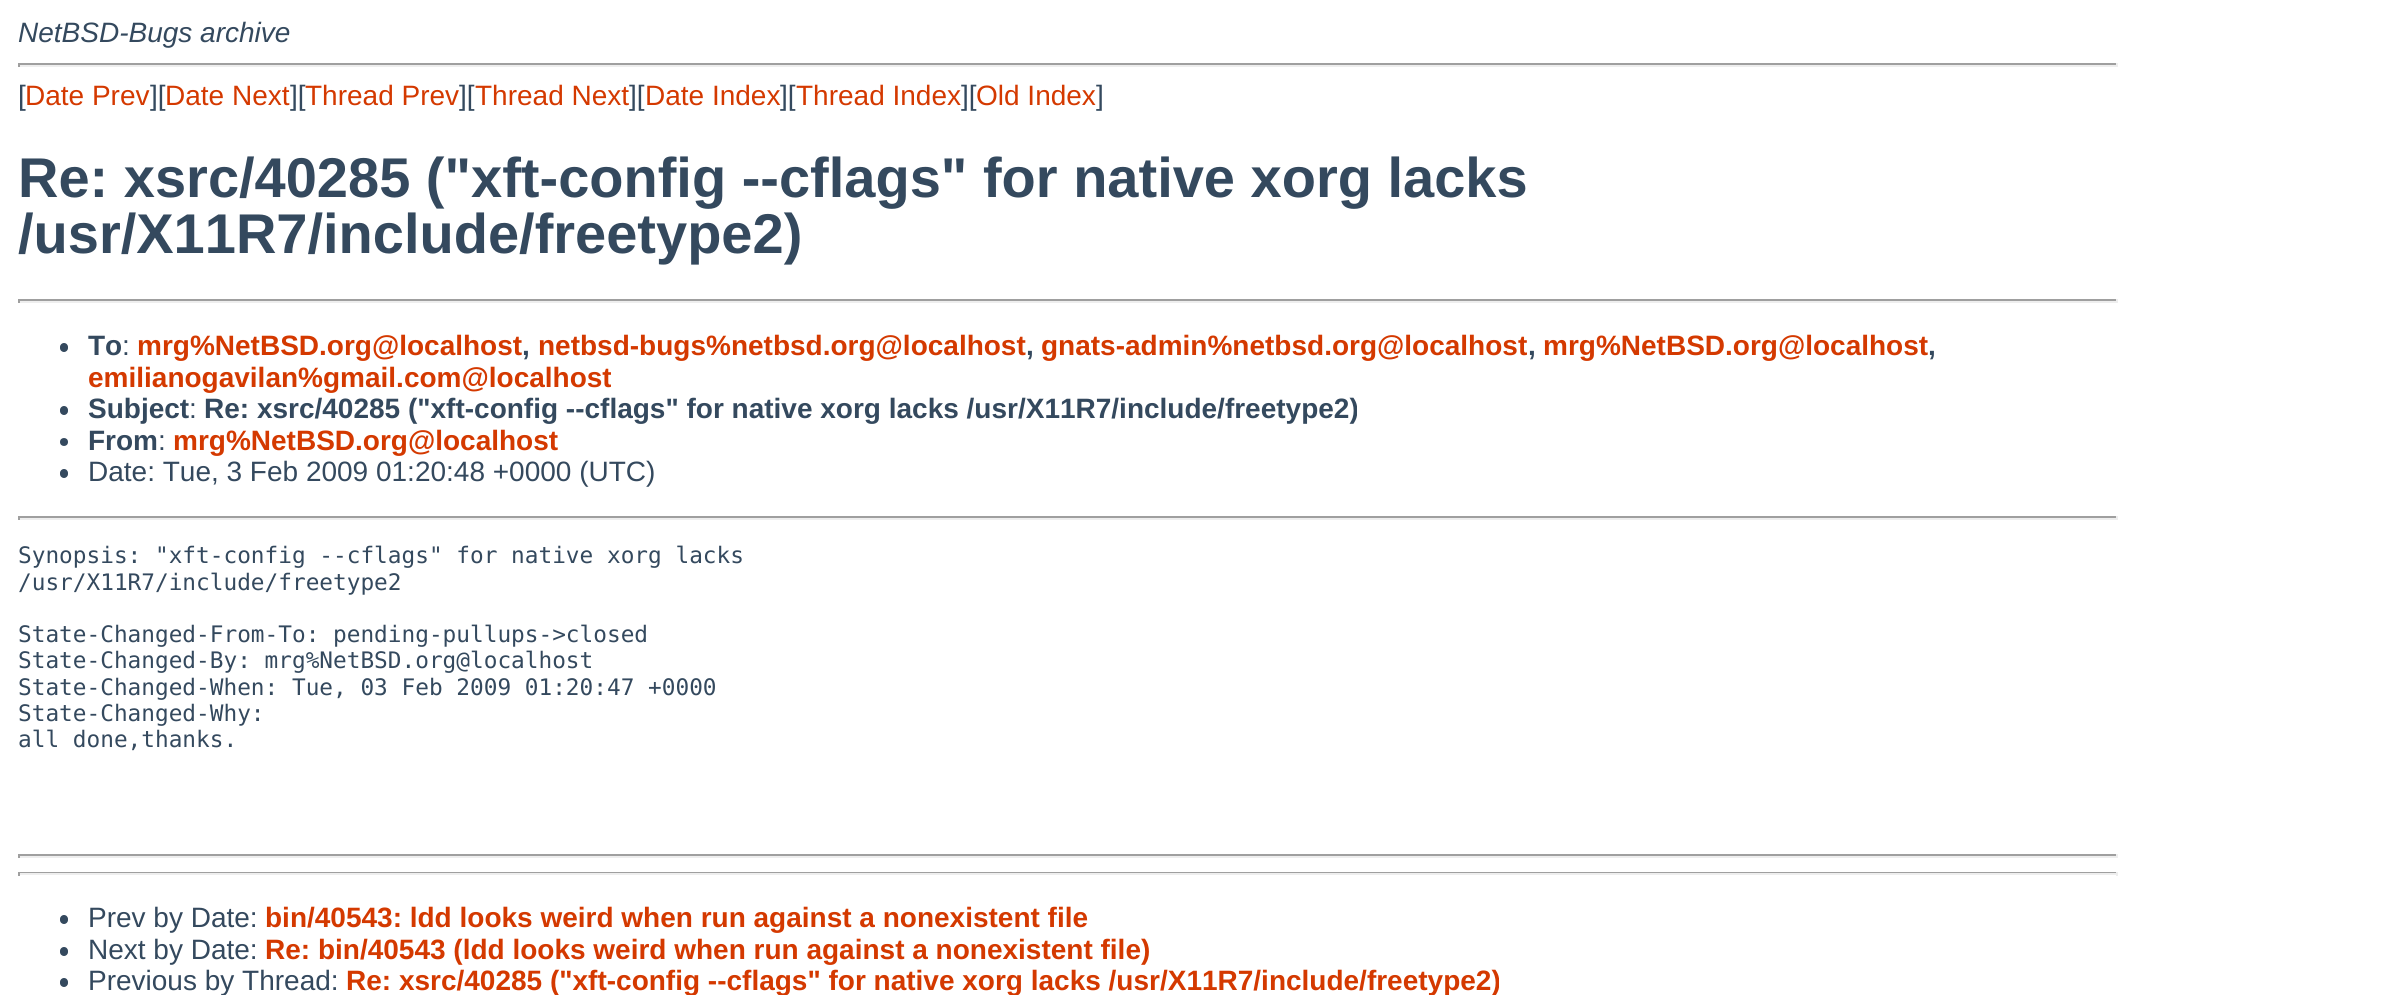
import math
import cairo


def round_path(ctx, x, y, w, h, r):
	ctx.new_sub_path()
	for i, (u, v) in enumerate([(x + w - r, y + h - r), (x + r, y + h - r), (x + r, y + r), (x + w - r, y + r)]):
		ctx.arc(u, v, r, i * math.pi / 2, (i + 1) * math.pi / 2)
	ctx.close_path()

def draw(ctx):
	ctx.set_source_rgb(1, 1, 1)
	ctx.paint()
	ctx.select_font_face('Liberation Sans', cairo.FONT_SLANT_ITALIC)
	ctx.set_font_size(28)
	ctx.set_source_rgb(0.204, 0.286, 0.369)
	ctx.move_to(18, 42)
	ctx.show_text('NetBSD-Bugs archive')
	ctx.set_source_rgb(0.624, 0.624, 0.624)
	ctx.rectangle(18, 63, 2100, 2)
	ctx.fill()
	ctx.set_source_rgb(0.933, 0.933, 0.933)
	ctx.rectangle(2116, 63, 2, 4)
	ctx.rectangle(18, 65, 2100, 2)
	ctx.fill()
	ctx.set_source_rgb(0.624, 0.624, 0.624)
	ctx.rectangle(18, 63, 2, 4)
	ctx.fill()
	ctx.select_font_face('Liberation Sans')
	ctx.set_source_rgb(0.204, 0.286, 0.369)
	ctx.move_to(18, 105)
	ctx.show_text('[')
	ctx.set_source_rgb(0.831, 0.224, 0)
	ctx.move_to(25, 105)
	ctx.show_text('Date Prev')
	ctx.set_source_rgb(0.204, 0.286, 0.369)
	ctx.move_to(150, 105)
	ctx.show_text('][')
	ctx.set_source_rgb(0.831, 0.224, 0)
	ctx.move_to(165, 105)
	ctx.show_text('Date Next')
	ctx.set_source_rgb(0.204, 0.286, 0.369)
	ctx.move_to(290, 105)
	ctx.show_text('][')
	ctx.set_source_rgb(0.831, 0.224, 0)
	ctx.move_to(305, 105)
	ctx.show_text('Thread Prev')
	ctx.set_source_rgb(0.204, 0.286, 0.369)
	ctx.move_to(459, 105)
	ctx.show_text('][')
	ctx.set_source_rgb(0.831, 0.224, 0)
	ctx.move_to(475, 105)
	ctx.show_text('Thread Next')
	ctx.set_source_rgb(0.204, 0.286, 0.369)
	ctx.move_to(629, 105)
	ctx.show_text('][')
	ctx.set_source_rgb(0.831, 0.224, 0)
	ctx.move_to(645, 105)
	ctx.show_text('Date Index')
	ctx.set_source_rgb(0.204, 0.286, 0.369)
	ctx.move_to(780, 105)
	ctx.show_text('][')
	ctx.set_source_rgb(0.831, 0.224, 0)
	ctx.move_to(796, 105)
	ctx.show_text('Thread Index')
	ctx.set_source_rgb(0.204, 0.286, 0.369)
	ctx.move_to(961, 105)
	ctx.show_text('][')
	ctx.set_source_rgb(0.831, 0.224, 0)
	ctx.move_to(976, 105)
	ctx.show_text('Old Index')
	ctx.set_source_rgb(0.204, 0.286, 0.369)
	ctx.move_to(1096, 105)
	ctx.show_text(']')
	ctx.select_font_face('Liberation Sans', cairo.FONT_SLANT_NORMAL, cairo.FONT_WEIGHT_BOLD)
	ctx.set_font_size(56)
	ctx.move_to(18, 197)
	ctx.show_text('Re: xsrc/40285 ("xft-config --cflags" for native xorg lacks')
	ctx.move_to(18, 253)
	ctx.show_text('/usr/X11R7/include/freetype2)')
	ctx.set_source_rgb(0.624, 0.624, 0.624)
	ctx.rectangle(18, 299, 2100, 2)
	ctx.fill()
	ctx.set_source_rgb(0.933, 0.933, 0.933)
	ctx.rectangle(2116, 299, 2, 4)
	ctx.rectangle(18, 301, 2100, 2)
	ctx.fill()
	ctx.set_source_rgb(0.624, 0.624, 0.624)
	ctx.rectangle(18, 299, 2, 4)
	ctx.fill()
	ctx.set_source_rgb(0.204, 0.286, 0.369)
	round_path(ctx, 60, 343, 8, 9, 4)
	ctx.fill()
	ctx.set_font_size(28)
	ctx.move_to(88, 355)
	ctx.show_text('To')
	ctx.select_font_face('Liberation Sans')
	ctx.move_to(122, 355)
	ctx.show_text(':')
	ctx.select_font_face('Liberation Sans', cairo.FONT_SLANT_NORMAL, cairo.FONT_WEIGHT_BOLD)
	ctx.set_source_rgb(0.831, 0.224, 0)
	for x, y, s in [
		(137, 355, 'mrg%NetBSD.org@localhost'),
		(538, 355, 'netbsd-bugs%netbsd.org@localhost'),
		(1041, 355, 'gnats-admin%netbsd.org@localhost'),
		(1543, 355, 'mrg%NetBSD.org@localhost'),
	]:
		ctx.move_to(x, y)
		ctx.show_text(s)
	ctx.set_source_rgb(0.204, 0.286, 0.369)
	for x, y, s in [
		(522, 355, ','),
		(1026, 355, ','),
		(1528, 355, ','),
		(1928, 355, ','),
	]:
		ctx.move_to(x, y)
		ctx.show_text(s)
	ctx.set_source_rgb(0.831, 0.224, 0)
	ctx.move_to(88, 387)
	ctx.show_text('emilianogavilan%gmail.com@localhost')
	ctx.set_source_rgb(0.204, 0.286, 0.369)
	round_path(ctx, 60, 406, 8, 9, 4)
	ctx.fill()
	ctx.move_to(88, 418)
	ctx.show_text('Subject')
	ctx.select_font_face('Liberation Sans')
	ctx.move_to(189, 418)
	ctx.show_text(':')
	ctx.select_font_face('Liberation Sans', cairo.FONT_SLANT_NORMAL, cairo.FONT_WEIGHT_BOLD)
	ctx.move_to(204, 418)
	ctx.show_text('Re: xsrc/40285 ("xft-config --cflags" for native xorg lacks /usr/X11R7/include/freetype2)')
	ctx.new_path()
	ctx.arc(64, 442, 4, 0, 2 * math.pi)
	ctx.fill()
	ctx.move_to(88, 450)
	ctx.show_text('From')
	ctx.select_font_face('Liberation Sans')
	ctx.move_to(158, 450)
	ctx.show_text(':')
	ctx.select_font_face('Liberation Sans', cairo.FONT_SLANT_NORMAL, cairo.FONT_WEIGHT_BOLD)
	ctx.set_source_rgb(0.831, 0.224, 0)
	ctx.move_to(173, 450)
	ctx.show_text('mrg%NetBSD.org@localhost')
	ctx.set_source_rgb(0.204, 0.286, 0.369)
	round_path(ctx, 60, 469, 8, 9, 4)
	ctx.fill()
	ctx.select_font_face('Liberation Sans')
	ctx.move_to(88, 481)
	ctx.show_text('Date: Tue, 3 Feb 2009 01:20:48 +0000 (UTC)')
	ctx.set_source_rgb(0.624, 0.624, 0.624)
	ctx.rectangle(18, 516, 2100, 2)
	ctx.fill()
	ctx.set_source_rgb(0.933, 0.933, 0.933)
	ctx.rectangle(2116, 516, 2, 4)
	ctx.rectangle(18, 518, 2100, 2)
	ctx.fill()
	ctx.set_source_rgb(0.624, 0.624, 0.624)
	ctx.rectangle(18, 516, 2, 4)
	ctx.fill()
	ctx.select_font_face('DejaVu Sans Mono')
	ctx.set_font_size(22.75)
	ctx.set_source_rgb(0.204, 0.286, 0.369)
	for x, y, s in [
		(18, 563, 'Synopsis: "xft-config --cflags" for native xorg lacks'),
		(18, 590, '/usr/X11R7/include/freetype2'),
		(18, 642, 'State-Changed-From-To: pending-pullups->closed'),
		(18, 668, 'State-Changed-By: mrg%NetBSD.org@localhost'),
		(18, 695, 'State-Changed-When: Tue, 03 Feb 2009 01:20:47 +0000'),
		(18, 721, 'State-Changed-Why:'),
		(18, 747, 'all done,thanks.'),
	]:
		ctx.move_to(x, y)
		ctx.show_text(s)
	ctx.set_source_rgb(0.624, 0.624, 0.624)
	ctx.rectangle(18, 854, 2100, 2)
	ctx.fill()
	ctx.set_source_rgb(0.933, 0.933, 0.933)
	ctx.rectangle(2116, 854, 2, 4)
	ctx.rectangle(18, 856, 2100, 2)
	ctx.fill()
	ctx.set_source_rgb(0.624, 0.624, 0.624)
	ctx.rectangle(18, 854, 2, 4)
	ctx.rectangle(18, 872, 2100, 1)
	ctx.fill()
	ctx.set_source_rgb(0.933, 0.933, 0.933)
	ctx.rectangle(2116, 872, 2, 4)
	ctx.rectangle(18, 873, 2100, 2)
	ctx.fill()
	ctx.set_source_rgb(0.624, 0.624, 0.624)
	ctx.rectangle(18, 872, 2, 4)
	ctx.fill()
	ctx.set_source_rgb(0.204, 0.286, 0.369)
	round_path(ctx, 60, 915, 8, 9, 4)
	ctx.fill()
	ctx.select_font_face('Liberation Sans')
	ctx.set_font_size(28)
	ctx.move_to(88, 927)
	ctx.show_text('Prev by Date:')
	ctx.select_font_face('Liberation Sans', cairo.FONT_SLANT_NORMAL, cairo.FONT_WEIGHT_BOLD)
	ctx.set_source_rgb(0.831, 0.224, 0)
	ctx.move_to(265, 927)
	ctx.show_text('bin/40543: ldd looks weird when run against a nonexistent file')
	ctx.set_source_rgb(0.204, 0.286, 0.369)
	round_path(ctx, 60, 947, 8, 9, 4)
	ctx.fill()
	ctx.select_font_face('Liberation Sans')
	ctx.move_to(88, 959)
	ctx.show_text('Next by Date:')
	ctx.select_font_face('Liberation Sans', cairo.FONT_SLANT_NORMAL, cairo.FONT_WEIGHT_BOLD)
	ctx.set_source_rgb(0.831, 0.224, 0)
	ctx.move_to(265, 959)
	ctx.show_text('Re: bin/40543 (ldd looks weird when run against a nonexistent file)')
	ctx.set_source_rgb(0.204, 0.286, 0.369)
	round_path(ctx, 60, 978, 8, 9, 4)
	ctx.fill()
	ctx.select_font_face('Liberation Sans')
	ctx.move_to(88, 990)
	ctx.show_text('Previous by Thread:')
	ctx.select_font_face('Liberation Sans', cairo.FONT_SLANT_NORMAL, cairo.FONT_WEIGHT_BOLD)
	ctx.set_source_rgb(0.831, 0.224, 0)
	ctx.move_to(346, 990)
	ctx.show_text('Re: xsrc/40285 ("xft-config --cflags" for native xorg lacks /usr/X11R7/include/freetype2)')


surface = cairo.ImageSurface(cairo.FORMAT_RGB24, 2405, 995)
ctx = cairo.Context(surface)
options = cairo.FontOptions()
options.set_hint_metrics(cairo.HINT_METRICS_OFF)
options.set_hint_style(cairo.HINT_STYLE_NONE)
ctx.set_font_options(options)
ctx.set_miter_limit(4)
draw(ctx)
surface.write_to_png('image.png')
